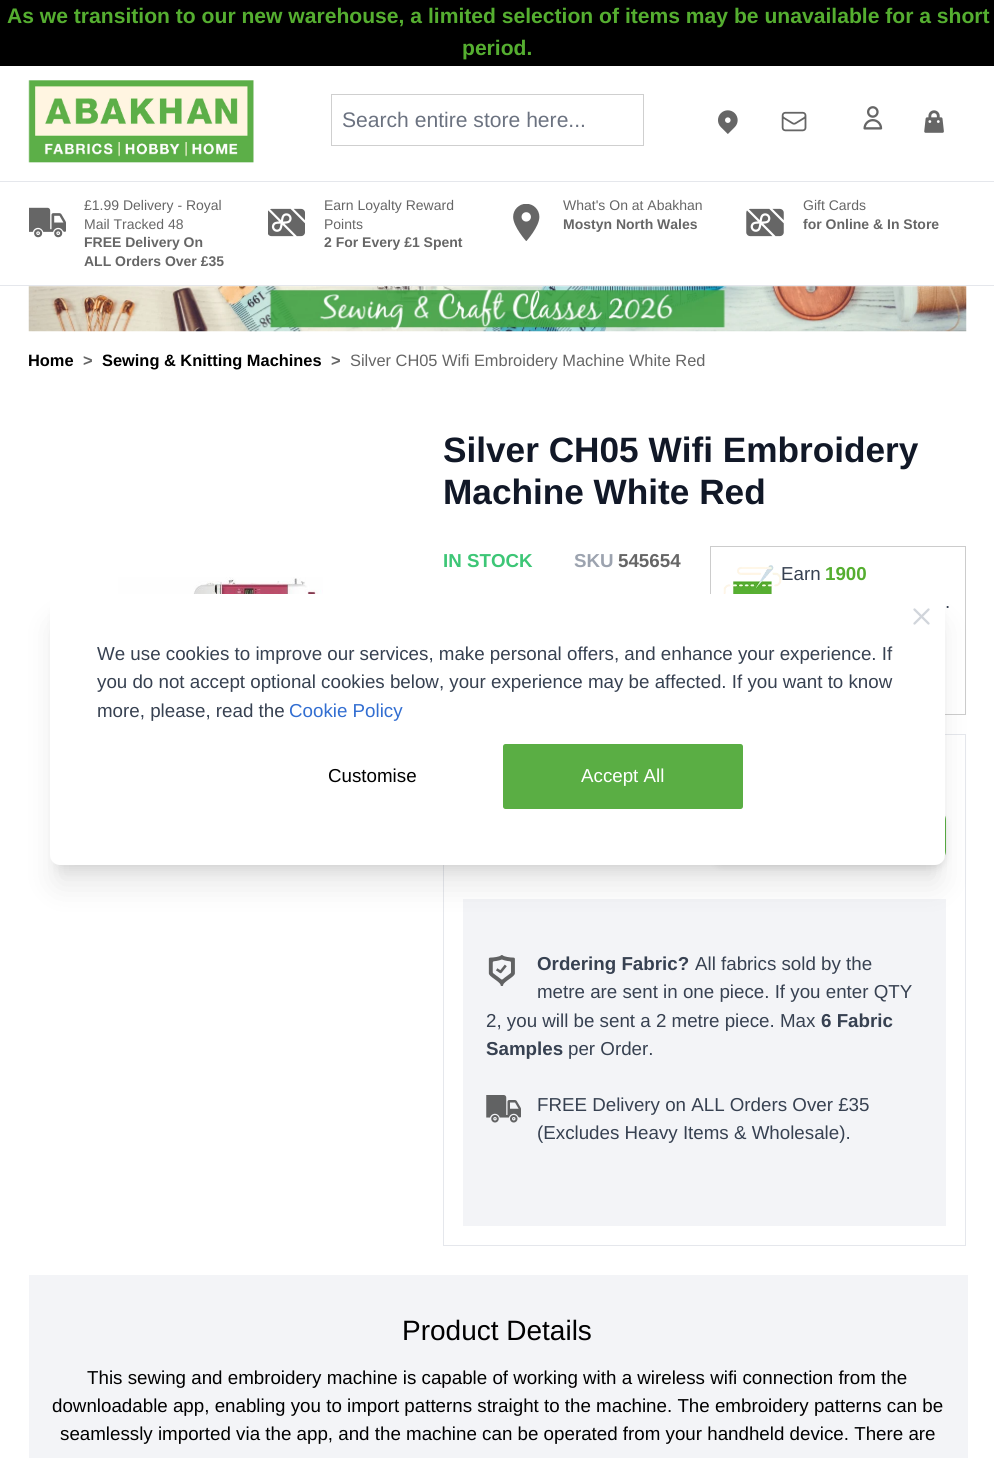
import math
import cairo


def round_path(ctx, x, y, w, h, r):
	ctx.new_sub_path()
	for i, (u, v) in enumerate([(x + w - r, y + h - r), (x + r, y + h - r), (x + r, y + r), (x + w - r, y + r)]):
		ctx.arc(u, v, r, i * math.pi / 2, (i + 1) * math.pi / 2)
	ctx.close_path()

def blur_box(ctx, x, y, w, h, r, blur, alpha):
	ctx.push_group_with_content(cairo.CONTENT_ALPHA)
	ctx.set_operator(cairo.OPERATOR_SOURCE)
	for i in range(15, -16, -2):
		e = blur * i / 6
		if min(w, h) + 2 * e > 0:
			ctx.set_source_rgba(0, 0, 0, alpha * math.erfc((i - 1) / 8.5) / 2)
			round_path(ctx, x - e, y - e, w + 2 * e, h + 2 * e, max(0, min(r + e + blur * .6, min(w, h) / 2 + e)))
			ctx.fill()
	ctx.mask(ctx.pop_group())

def paste(ctx, path, x, y, w, h):
	ctx.save()
	ctx.set_source_surface(cairo.ImageSurface.create_from_png(path), x, y)
	ctx.rectangle(x, y, w, h)
	ctx.fill()
	ctx.restore()

def draw(ctx):
	ctx.set_source_rgb(1, 1, 1)
	ctx.paint()
	ctx.set_source_rgb(0, 0, 0)
	ctx.rectangle(0, 0, 994, 66)
	ctx.fill()
	ctx.select_font_face('Liberation Sans', cairo.FONT_SLANT_NORMAL, cairo.FONT_WEIGHT_BOLD)
	ctx.set_font_size(21.1)
	ctx.set_source_rgb(0.333, 0.682, 0.188)
	ctx.move_to(7, 23)
	ctx.show_text('As we transition to our new warehouse, a limited selection of items may be unavailable for a short')
	ctx.move_to(462, 55)
	ctx.show_text('period.')
	ctx.set_source_rgb(0.898, 0.906, 0.922)
	ctx.rectangle(0, 181, 994, 1)
	ctx.fill()
	paste(ctx, 'media/1.png', 28, 80, 226, 83)
	paste(ctx, 'media/2.png', 718, 110, 20, 24)
	paste(ctx, 'media/3.png', 781, 111, 26, 21)
	paste(ctx, 'media/4.png', 863, 106, 20, 24)
	paste(ctx, 'media/5.png', 924, 110, 20, 23)
	ctx.rectangle(331.5, 94.5, 312, 51)
	ctx.set_source_rgb(0.812, 0.812, 0.812)
	ctx.set_line_width(1)
	ctx.stroke()
	ctx.select_font_face('Liberation Sans')
	ctx.set_source_rgb(0.42, 0.447, 0.502)
	ctx.move_to(342, 127)
	ctx.show_text('Search entire store here...')
	ctx.set_source_rgb(0.898, 0.906, 0.922)
	ctx.rectangle(0, 285, 994, 1)
	ctx.fill()
	paste(ctx, 'media/6.png', 29, 207, 37, 31)
	ctx.set_font_size(14)
	ctx.set_source_rgb(0.4, 0.4, 0.4)
	ctx.move_to(84, 210)
	ctx.show_text('£1.99 Delivery - Royal')
	ctx.move_to(84, 229)
	ctx.show_text('Mail Tracked 48')
	ctx.select_font_face('Liberation Sans', cairo.FONT_SLANT_NORMAL, cairo.FONT_WEIGHT_BOLD)
	ctx.move_to(84, 247)
	ctx.show_text('FREE Delivery On')
	ctx.move_to(84, 266)
	ctx.show_text('ALL Orders Over £35')
	paste(ctx, 'media/7.png', 268, 208, 37, 29)
	ctx.select_font_face('Liberation Sans')
	ctx.move_to(324, 210)
	ctx.show_text('Earn Loyalty Reward')
	ctx.move_to(324, 229)
	ctx.show_text('Points')
	ctx.select_font_face('Liberation Sans', cairo.FONT_SLANT_NORMAL, cairo.FONT_WEIGHT_BOLD)
	ctx.move_to(324, 247)
	ctx.show_text('2 For Every £1 Spent')
	paste(ctx, 'media/8.png', 513, 204, 27, 37)
	ctx.select_font_face('Liberation Sans')
	ctx.move_to(563, 210)
	ctx.show_text('What\'s On at Abakhan')
	ctx.select_font_face('Liberation Sans', cairo.FONT_SLANT_NORMAL, cairo.FONT_WEIGHT_BOLD)
	ctx.move_to(563, 229)
	ctx.show_text('Mostyn North Wales')
	paste(ctx, 'media/9.png', 746, 208, 38, 29)
	ctx.select_font_face('Liberation Sans')
	ctx.move_to(803, 210)
	ctx.show_text('Gift Cards')
	ctx.select_font_face('Liberation Sans', cairo.FONT_SLANT_NORMAL, cairo.FONT_WEIGHT_BOLD)
	ctx.move_to(803, 229)
	ctx.show_text('for Online & In Store')
	paste(ctx, 'media/10.png', 28, 286, 939, 46)
	ctx.set_font_size(16.4)
	ctx.set_source_rgb(0, 0, 0)
	ctx.move_to(28, 366)
	ctx.show_text('Home')
	ctx.set_source_rgb(0.4, 0.4, 0.4)
	ctx.move_to(83, 366)
	ctx.show_text('>')
	ctx.set_source_rgb(0, 0, 0)
	ctx.move_to(102, 366)
	ctx.show_text('Sewing & Knitting Machines')
	ctx.set_source_rgb(0.4, 0.4, 0.4)
	ctx.move_to(331, 366)
	ctx.show_text('>')
	ctx.select_font_face('Liberation Sans')
	ctx.move_to(350, 366)
	ctx.show_text('Silver CH05 Wifi Embroidery Machine White Red')
	paste(ctx, 'media/11.png', 118, 577, 205, 17)
	ctx.select_font_face('Liberation Sans', cairo.FONT_SLANT_NORMAL, cairo.FONT_WEIGHT_BOLD)
	ctx.set_font_size(35.2)
	ctx.set_source_rgb(0.067, 0.094, 0.153)
	ctx.move_to(443, 462)
	ctx.show_text('Silver CH05 Wifi Embroidery')
	ctx.move_to(443, 504)
	ctx.show_text('Machine White Red')
	ctx.set_font_size(18.75)
	ctx.set_source_rgb(0.239, 0.776, 0.463)
	ctx.move_to(443, 567)
	ctx.show_text('IN STOCK')
	ctx.set_source_rgb(0.612, 0.639, 0.686)
	ctx.move_to(574, 567)
	ctx.show_text('SKU')
	ctx.set_source_rgb(0.4, 0.4, 0.4)
	ctx.move_to(618, 567)
	ctx.show_text('545654')
	ctx.rectangle(710.5, 546.5, 255, 168)
	ctx.set_source_rgb(0.8, 0.8, 0.8)
	ctx.stroke()
	paste(ctx, 'media/12.png', 723, 565, 59, 29)
	ctx.select_font_face('Liberation Sans')
	ctx.set_source_rgb(0.216, 0.255, 0.318)
	ctx.move_to(781, 580)
	ctx.show_text('Earn')
	ctx.select_font_face('Liberation Sans', cairo.FONT_SLANT_NORMAL, cairo.FONT_WEIGHT_BOLD)
	ctx.set_source_rgb(0.333, 0.682, 0.188)
	ctx.move_to(825, 580)
	ctx.show_text('1900')
	ctx.select_font_face('Liberation Sans')
	ctx.set_source_rgb(0.216, 0.255, 0.318)
	ctx.move_to(945, 608)
	ctx.show_text('.')
	ctx.rectangle(443.5, 734.5, 522, 511)
	ctx.set_source_rgb(0.898, 0.906, 0.922)
	ctx.stroke()
	ctx.set_source_rgb(0, 0, 0)
	blur_box(ctx, 713, 816, 232, 49, 9, 4, 0.1)
	ctx.set_source_rgb(0.353, 0.682, 0.267)
	round_path(ctx, 711, 810, 235, 51, 10)
	ctx.fill()
	ctx.set_source_rgb(0.953, 0.957, 0.965)
	ctx.rectangle(463, 899, 483, 327)
	ctx.fill()
	paste(ctx, 'media/13.png', 488, 955, 27, 31)
	ctx.select_font_face('Liberation Sans', cairo.FONT_SLANT_NORMAL, cairo.FONT_WEIGHT_BOLD)
	ctx.set_source_rgb(0.216, 0.255, 0.318)
	ctx.move_to(537, 970)
	ctx.show_text('Ordering Fabric?')
	ctx.select_font_face('Liberation Sans')
	for x, y, s in [
		(695, 970, 'All fabrics sold by the'),
		(537, 998, 'metre are sent in one piece. If you enter QTY'),
		(486, 1027, '2, you will be sent a 2 metre piece. Max'),
	]:
		ctx.move_to(x, y)
		ctx.show_text(s)
	ctx.select_font_face('Liberation Sans', cairo.FONT_SLANT_NORMAL, cairo.FONT_WEIGHT_BOLD)
	ctx.move_to(821, 1027)
	ctx.show_text('6 Fabric')
	ctx.move_to(486, 1055)
	ctx.show_text('Samples')
	ctx.select_font_face('Liberation Sans')
	ctx.move_to(568, 1055)
	ctx.show_text('per Order.')
	paste(ctx, 'media/14.png', 486, 1095, 35, 28)
	ctx.move_to(537, 1111)
	ctx.show_text('FREE Delivery on ALL Orders Over £35')
	ctx.move_to(537, 1139)
	ctx.show_text('(Excludes Heavy Items & Wholesale).')
	ctx.set_source_rgb(0.953, 0.957, 0.965)
	ctx.rectangle(29, 1275, 939, 183)
	ctx.fill()
	ctx.set_font_size(28)
	ctx.set_source_rgb(0, 0, 0)
	ctx.move_to(402, 1340)
	ctx.show_text('Product Details')
	ctx.set_font_size(18.75)
	for x, y, s in [
		(87, 1384, 'This sewing and embroidery machine is capable of working with a wireless wifi connection from the'),
		(52, 1412, 'downloadable app, enabling you to import patterns straight to the machine. The embroidery patterns can be'),
		(60, 1440, 'seamlessly imported via the app, and the machine can be operated from your handheld device. There are'),
	]:
		ctx.move_to(x, y)
		ctx.show_text(s)
	ctx.set_source_rgb(0, 0, 0)
	blur_box(ctx, 58, 611, 880, 257, 2, 6, 0.1)
	blur_box(ctx, 56, 625, 883, 259, 3, 15.5, 0.1)
	ctx.set_source_rgb(1, 1, 1)
	round_path(ctx, 50, 594, 895, 271, 10)
	ctx.fill()
	ctx.new_path()
	ctx.move_to(914.5, 623.5)
	ctx.line_to(928.5, 609.5)
	ctx.move_to(914.5, 609.5)
	ctx.line_to(928.5, 623.5)
	ctx.set_source_rgb(0.82, 0.835, 0.859)
	ctx.set_line_width(2.3)
	ctx.set_line_cap(cairo.LINE_CAP_ROUND)
	ctx.set_line_join(cairo.LINE_JOIN_ROUND)
	ctx.stroke()
	ctx.set_source_rgb(0.216, 0.255, 0.318)
	for x, y, s in [
		(97, 660, 'We use cookies to improve our services, make personal offers, and enhance your experience. If'),
		(97, 688, 'you do not accept optional cookies below, your experience may be affected. If you want to know'),
		(97, 717, 'more, please, read the'),
	]:
		ctx.move_to(x, y)
		ctx.show_text(s)
	ctx.set_source_rgb(0.196, 0.431, 0.82)
	ctx.move_to(289, 717)
	ctx.show_text('Cookie Policy')
	ctx.set_source_rgb(0, 0, 0)
	ctx.move_to(328, 782)
	ctx.show_text('Customise')
	ctx.set_source_rgb(0.353, 0.682, 0.267)
	round_path(ctx, 503, 744, 240, 65, 2.5)
	ctx.fill()
	ctx.set_source_rgb(1, 1, 1)
	ctx.move_to(581, 782)
	ctx.show_text('Accept All')


surface = cairo.ImageSurface(cairo.FORMAT_RGB24, 994, 1458)
ctx = cairo.Context(surface)
options = cairo.FontOptions()
options.set_hint_metrics(cairo.HINT_METRICS_OFF)
options.set_hint_style(cairo.HINT_STYLE_NONE)
ctx.set_font_options(options)
ctx.set_miter_limit(4)
draw(ctx)
surface.write_to_png('image.png')
